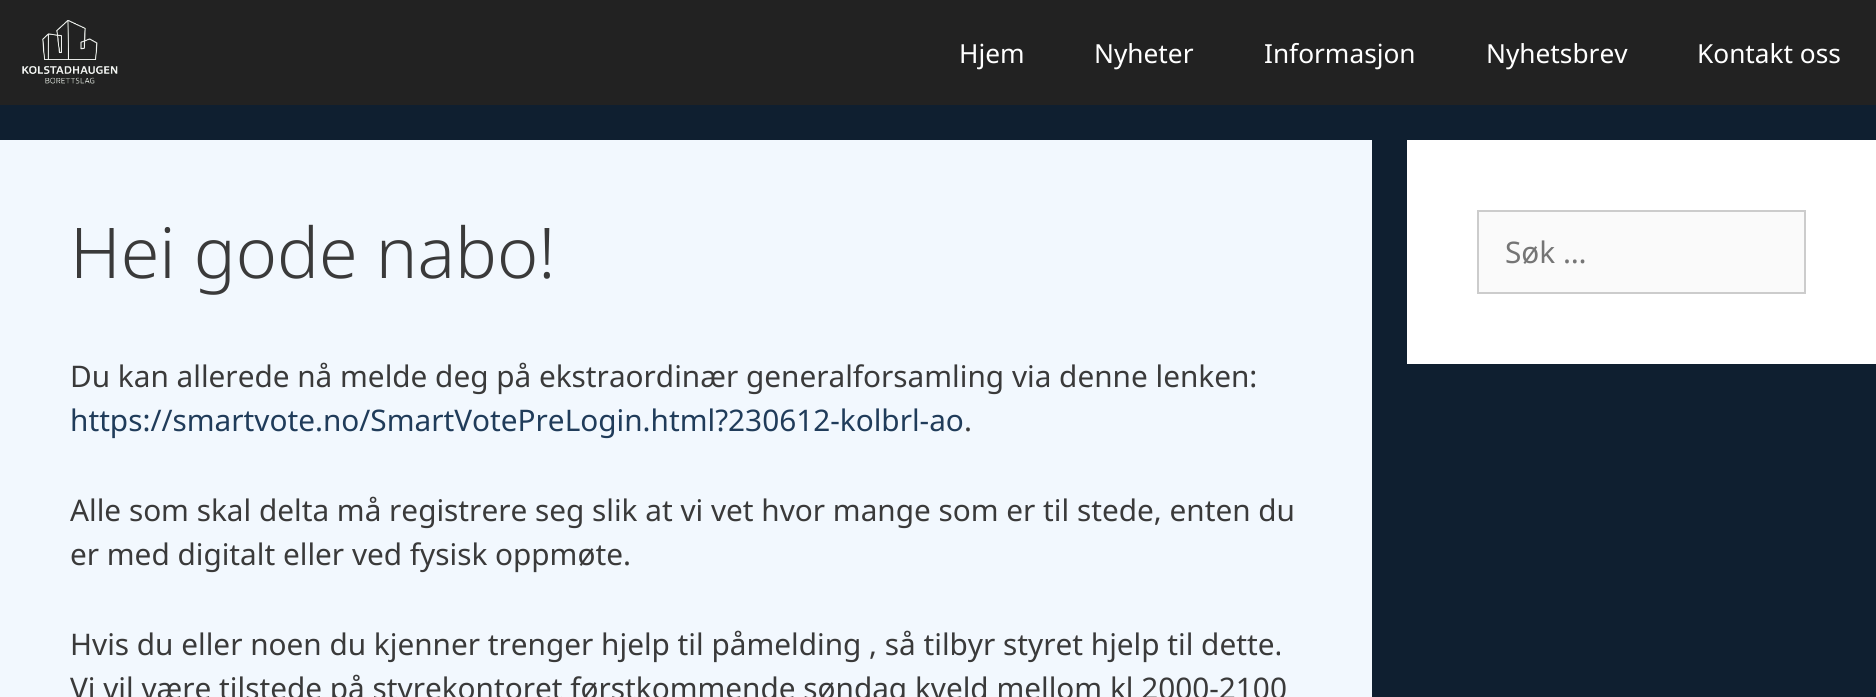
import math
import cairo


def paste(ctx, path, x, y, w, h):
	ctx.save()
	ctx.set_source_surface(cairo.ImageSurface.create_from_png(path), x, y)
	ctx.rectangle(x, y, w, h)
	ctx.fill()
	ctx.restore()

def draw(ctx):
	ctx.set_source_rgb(0.059, 0.122, 0.188)
	ctx.paint()
	ctx.set_source_rgb(0.133, 0.133, 0.133)
	ctx.rectangle(0, 0, 1876, 105)
	ctx.fill()
	paste(ctx, 'media/1.png', 22, 20, 96, 64)
	ctx.select_font_face('Noto Sans')
	ctx.set_font_size(26.25)
	ctx.set_source_rgb(1, 1, 1)
	for x, y, s in [
		(959, 63, 'Hjem'),
		(1094, 63, 'Nyheter'),
		(1264, 63, 'Informasjon'),
		(1486, 63, 'Nyhetsbrev'),
		(1697, 63, 'Kontakt oss'),
	]:
		ctx.move_to(x, y)
		ctx.show_text(s)
	ctx.set_source_rgb(0.949, 0.969, 0.996)
	ctx.rectangle(0, 140, 1372, 557)
	ctx.fill()
	ctx.select_font_face('Noto Sans Light')
	ctx.set_font_size(70)
	ctx.set_source_rgb(0.227, 0.227, 0.227)
	ctx.move_to(70, 278)
	ctx.show_text('Hei gode nabo!')
	ctx.select_font_face('Noto Sans')
	ctx.set_font_size(29.75)
	ctx.move_to(70, 387)
	ctx.show_text('Du kan allerede nå melde deg på ekstraordinær generalforsamling via denne lenken:')
	ctx.set_source_rgb(0.125, 0.235, 0.353)
	ctx.move_to(70, 431)
	ctx.show_text('https://smartvote.no/SmartVotePreLogin.html?230612-kolbrl-ao')
	ctx.set_source_rgb(0.227, 0.227, 0.227)
	for x, y, s in [
		(964, 431, '.'),
		(70, 521, 'Alle som skal delta må registrere seg slik at vi vet hvor mange som er til stede, enten du'),
		(70, 565, 'er med digitalt eller ved fysisk oppmøte.'),
		(70, 655, 'Hvis du eller noen du kjenner trenger hjelp til påmelding , så tilbyr styret hjelp til dette.'),
		(70, 699, 'Vi vil være tilstede på styrekontoret førstkommende søndag kveld mellom kl 2000-2100'),
	]:
		ctx.move_to(x, y)
		ctx.show_text(s)
	ctx.set_source_rgb(1, 1, 1)
	ctx.rectangle(1407, 140, 469, 224)
	ctx.fill()
	ctx.set_source_rgb(0.98, 0.98, 0.98)
	ctx.rectangle(1478, 211, 327, 82)
	ctx.fill_preserve()
	ctx.set_source_rgb(0.8, 0.8, 0.8)
	ctx.stroke()
	ctx.set_source_rgb(0.459, 0.459, 0.459)
	ctx.move_to(1505, 263)
	ctx.show_text('Søk …')


surface = cairo.ImageSurface(cairo.FORMAT_RGB24, 1876, 697)
ctx = cairo.Context(surface)
options = cairo.FontOptions()
options.set_hint_metrics(cairo.HINT_METRICS_OFF)
options.set_hint_style(cairo.HINT_STYLE_NONE)
ctx.set_font_options(options)
ctx.set_miter_limit(4)
draw(ctx)
surface.write_to_png('image.png')
